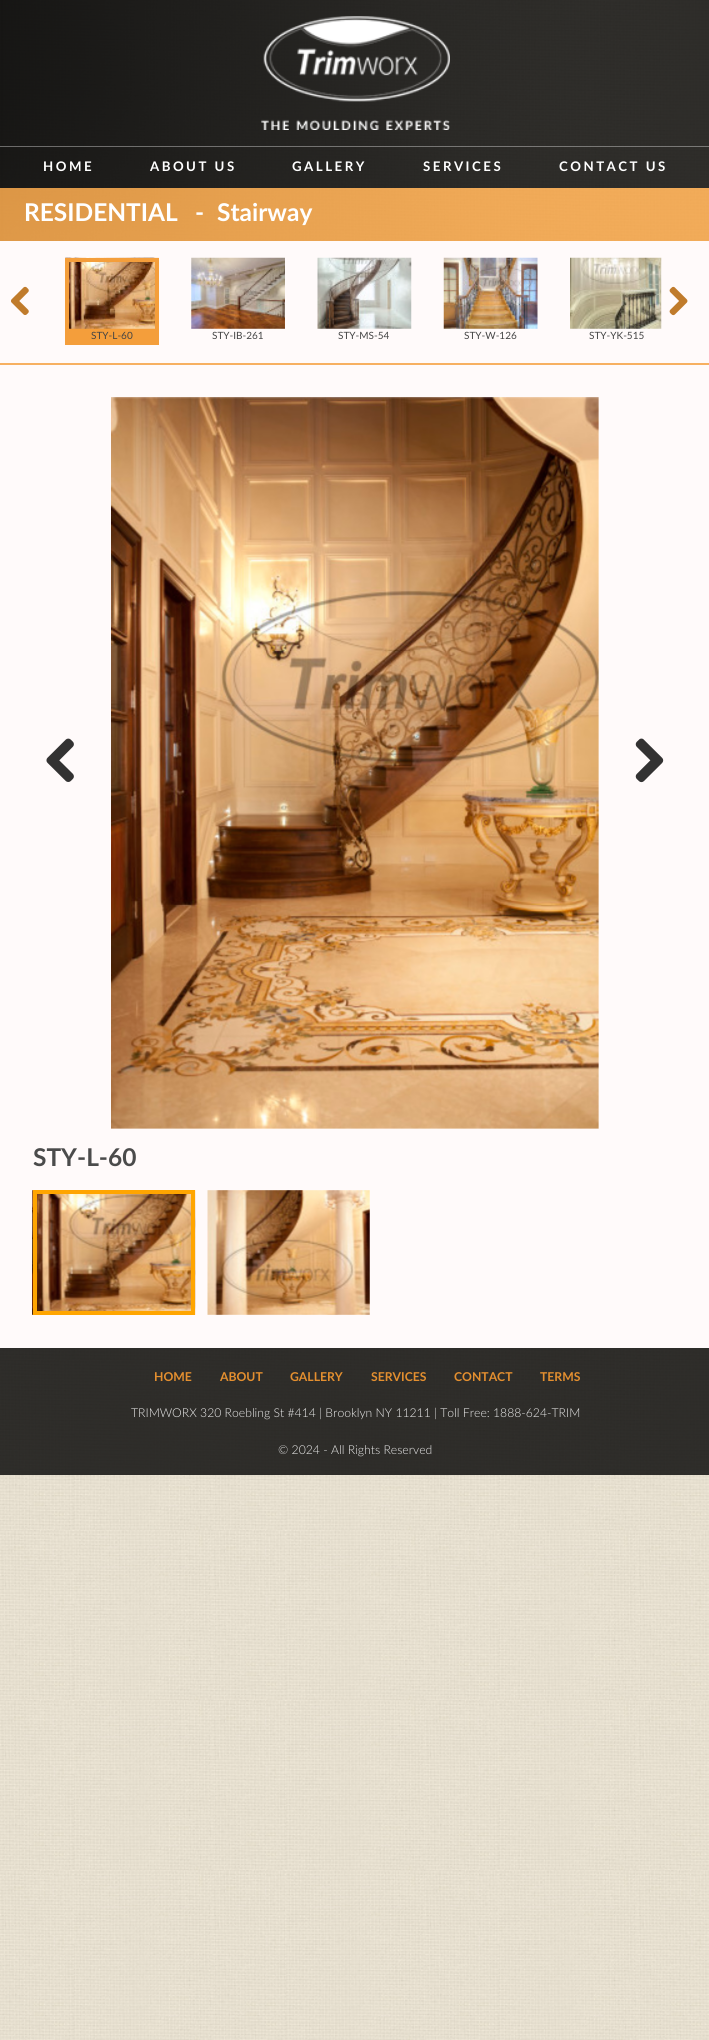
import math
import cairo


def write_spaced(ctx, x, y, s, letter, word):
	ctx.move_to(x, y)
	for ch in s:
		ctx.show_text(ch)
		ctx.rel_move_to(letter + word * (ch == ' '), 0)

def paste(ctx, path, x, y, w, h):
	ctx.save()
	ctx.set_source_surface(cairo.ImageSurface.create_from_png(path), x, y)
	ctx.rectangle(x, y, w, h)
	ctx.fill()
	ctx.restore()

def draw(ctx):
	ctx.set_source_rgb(1, 1, 1)
	ctx.paint()
	paste(ctx, 'media/1.png', 0, 0, 709, 2040)
	paste(ctx, 'media/2.png', 0, 0, 709, 1475)
	ctx.set_source_rgba(0, 0, 0, 0.8)
	ctx.rectangle(0, 0, 709, 146)
	ctx.fill()
	paste(ctx, 'media/3.png', 261, 16, 189, 114)
	ctx.rectangle(0, 146, 709, 42)
	ctx.fill()
	ctx.set_source_rgba(1, 1, 1, 0.36)
	ctx.rectangle(0, 146, 709, 1)
	ctx.fill()
	ctx.select_font_face('Lato', cairo.FONT_SLANT_NORMAL, cairo.FONT_WEIGHT_BOLD)
	ctx.set_font_size(13.25)
	ctx.set_source_rgb(1, 1, 1)
	for x, y, s in [
		(43, 171, 'HOME'),
		(150, 171, 'ABOUT US'),
		(292, 171, 'GALLERY'),
		(423, 171, 'SERVICES'),
		(559, 171, 'CONTACT US'),
	]:
		write_spaced(ctx, x, y, s, 2.5, 0)
	ctx.set_source_rgba(0.957, 0.62, 0.231, 0.8)
	ctx.rectangle(0, 188, 709, 53)
	ctx.fill()
	ctx.set_font_size(24.5)
	ctx.set_source_rgb(1, 1, 1)
	for x, y, s in [
		(24, 221, 'RESIDENTIAL'),
		(195, 221, '-'),
		(217, 221, 'Stairway'),
	]:
		ctx.move_to(x, y)
		ctx.show_text(s)
	ctx.set_source_rgb(1, 0.98, 0.98)
	ctx.rectangle(0, 241, 709, 122)
	ctx.fill()
	ctx.set_source_rgb(0.965, 0.69, 0.38)
	ctx.rectangle(0, 363, 709, 2)
	ctx.fill()
	paste(ctx, 'media/4.png', 11, 286, 18, 29)
	paste(ctx, 'media/5.png', 669, 286, 19, 30)
	ctx.set_source_rgb(0.957, 0.62, 0.231)
	ctx.rectangle(69, 328, 86, 13)
	ctx.fill()
	paste(ctx, 'media/6.png', 65, 257, 94, 72)
	ctx.rectangle(67, 260, 90, 83)
	ctx.set_line_width(4)
	ctx.stroke()
	ctx.select_font_face('Lato')
	ctx.set_font_size(10)
	ctx.set_source_rgb(0.267, 0.267, 0.267)
	ctx.move_to(91, 339)
	ctx.show_text('STY-L-60')
	paste(ctx, 'media/7.png', 191, 257, 94, 72)
	ctx.move_to(212, 339)
	ctx.show_text('STY-IB-261')
	paste(ctx, 'media/8.png', 317, 257, 95, 72)
	ctx.move_to(338, 339)
	ctx.show_text('STY-MS-54')
	paste(ctx, 'media/9.png', 443, 257, 95, 72)
	ctx.move_to(464, 339)
	ctx.show_text('STY-W-126')
	paste(ctx, 'media/10.png', 570, 257, 92, 72)
	ctx.move_to(589, 339)
	ctx.show_text('STY-YK-515')
	ctx.set_source_rgb(1, 0.98, 0.98)
	ctx.rectangle(0, 365, 709, 983)
	ctx.fill()
	paste(ctx, 'media/11.png', 111, 397, 488, 732)
	paste(ctx, 'media/12.png', 46, 738, 28, 44)
	paste(ctx, 'media/13.png', 635, 738, 29, 45)
	ctx.select_font_face('Lato', cairo.FONT_SLANT_NORMAL, cairo.FONT_WEIGHT_BOLD)
	ctx.set_font_size(24.5)
	ctx.set_source_rgb(0.294, 0.294, 0.294)
	ctx.move_to(33, 1166)
	ctx.show_text('STY-L-60')
	paste(ctx, 'media/14.png', 32, 1190, 164, 125)
	ctx.rectangle(35, 1192, 158, 121)
	ctx.set_source_rgb(1, 0.647, 0)
	ctx.stroke()
	paste(ctx, 'media/15.png', 207, 1190, 163, 125)
	ctx.set_source_rgba(0, 0, 0, 0.8)
	ctx.rectangle(0, 1348, 709, 127)
	ctx.fill()
	ctx.set_font_size(12.2)
	ctx.set_source_rgb(0.894, 0.561, 0.184)
	for x, y, s in [
		(154, 1381, 'HOME'),
		(220, 1381, 'ABOUT'),
		(290, 1381, 'GALLERY'),
		(371, 1381, 'SERVICES'),
		(454, 1381, 'CONTACT'),
		(540, 1381, 'TERMS'),
	]:
		ctx.move_to(x, y)
		ctx.show_text(s)
	ctx.select_font_face('Lato Light')
	ctx.set_source_rgb(0.933, 0.933, 0.933)
	ctx.move_to(131, 1417)
	ctx.show_text('TRIMWORX 320 Roebling St #414 | Brooklyn NY 11211 | Toll Free: 1888-624-TRIM')
	ctx.move_to(278, 1454)
	ctx.show_text('© 2024 - All Rights Reserved')


surface = cairo.ImageSurface(cairo.FORMAT_RGB24, 709, 2040)
ctx = cairo.Context(surface)
options = cairo.FontOptions()
options.set_hint_metrics(cairo.HINT_METRICS_OFF)
options.set_hint_style(cairo.HINT_STYLE_NONE)
ctx.set_font_options(options)
ctx.set_miter_limit(4)
draw(ctx)
surface.write_to_png('image.png')
